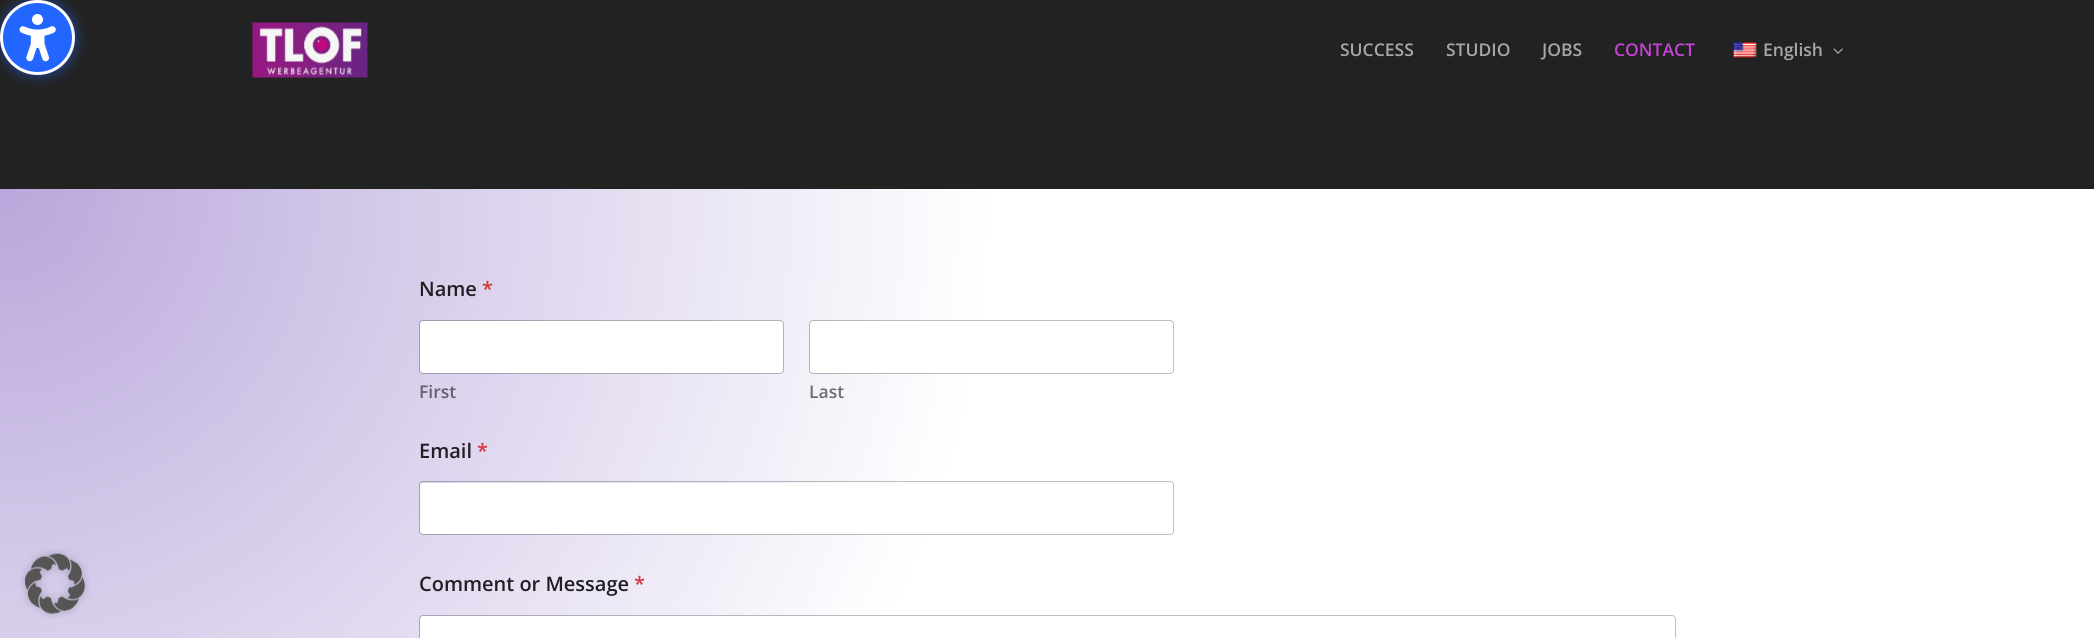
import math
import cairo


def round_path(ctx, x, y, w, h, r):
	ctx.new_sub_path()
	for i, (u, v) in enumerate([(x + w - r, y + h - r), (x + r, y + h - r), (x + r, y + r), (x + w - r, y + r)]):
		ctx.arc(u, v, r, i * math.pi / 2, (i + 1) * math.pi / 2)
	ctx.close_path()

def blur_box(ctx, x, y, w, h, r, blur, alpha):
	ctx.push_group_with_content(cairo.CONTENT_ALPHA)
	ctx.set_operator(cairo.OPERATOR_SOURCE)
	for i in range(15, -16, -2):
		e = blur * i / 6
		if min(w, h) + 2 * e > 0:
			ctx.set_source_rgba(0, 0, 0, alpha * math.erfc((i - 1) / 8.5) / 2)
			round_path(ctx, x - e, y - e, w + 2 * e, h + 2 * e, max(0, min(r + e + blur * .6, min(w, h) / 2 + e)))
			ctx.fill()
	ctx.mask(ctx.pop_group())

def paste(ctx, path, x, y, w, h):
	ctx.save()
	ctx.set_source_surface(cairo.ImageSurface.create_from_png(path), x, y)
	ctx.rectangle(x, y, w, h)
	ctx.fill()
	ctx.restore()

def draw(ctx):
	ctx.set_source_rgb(0.133, 0.133, 0.133)
	ctx.paint()
	ctx.set_source_rgb(0.133, 0.4, 1)
	blur_box(ctx, -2, -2, 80, 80, 40, 5, 0.4)
	ctx.set_source_rgb(0.133, 0.4, 1)
	ctx.arc(37.5, 37.5, 36, 0, 2 * math.pi)
	ctx.fill_preserve()
	ctx.set_source_rgb(1, 1, 1)
	ctx.set_line_width(3)
	ctx.stroke()
	paste(ctx, 'media/1.png', 19, 14, 37, 48)
	ctx.set_source_rgb(0.122, 0.122, 0.122)
	ctx.rectangle(0, 100, 2094, 1)
	ctx.fill()
	paste(ctx, 'media/2.png', 252, 22, 117, 56)
	ctx.select_font_face('Open Sans SemiBold')
	ctx.set_font_size(17.5)
	ctx.set_source_rgb(0.655, 0.655, 0.655)
	for x, y, s in [
		(1340, 56, 'SUCCESS'),
		(1446, 56, 'STUDIO'),
		(1542, 56, 'JOBS'),
	]:
		ctx.move_to(x, y)
		ctx.show_text(s)
	ctx.set_source_rgb(0.773, 0.267, 0.839)
	ctx.move_to(1614, 56)
	ctx.show_text('CONTACT')
	paste(ctx, 'media/3.png', 1733, 42, 24, 16)
	ctx.set_source_rgb(0.655, 0.655, 0.655)
	ctx.move_to(1763, 56)
	ctx.show_text('English')
	paste(ctx, 'media/4.png', 1833, 48, 10, 6)
	gradient = cairo.RadialGradient(0, 189, 0, 0, 189, 2308)
	gradient.add_color_stop_rgba(0, 0.725, 0.655, 0.859, 1)
	gradient.add_color_stop_rgba(0.43, 1, 1, 1, 1)
	ctx.set_source(gradient)
	ctx.rectangle(0, 189, 2094, 449)
	ctx.fill()
	ctx.set_font_size(20)
	ctx.set_source_rgb(0.129, 0.122, 0.137)
	ctx.move_to(419, 296)
	ctx.show_text('Name')
	ctx.set_source_rgb(0.839, 0.212, 0.216)
	ctx.move_to(482, 296)
	ctx.show_text('*')
	ctx.set_source_rgb(1, 1, 1)
	round_path(ctx, 420, 321, 363, 52, 2.5)
	ctx.fill()
	round_path(ctx, 419.5, 320.5, 364, 53, 3.5)
	ctx.set_source_rgba(0, 0, 0, 0.25)
	ctx.set_line_width(1)
	ctx.stroke()
	ctx.set_font_size(17.5)
	ctx.set_source_rgb(0.388, 0.373, 0.42)
	ctx.move_to(419, 398)
	ctx.show_text('First')
	ctx.set_source_rgb(1, 1, 1)
	round_path(ctx, 810, 321, 363, 52, 2.5)
	ctx.fill()
	round_path(ctx, 809.5, 320.5, 364, 53, 3.5)
	ctx.set_source_rgba(0, 0, 0, 0.25)
	ctx.stroke()
	ctx.set_source_rgb(0.431, 0.427, 0.439)
	ctx.move_to(809, 398)
	ctx.show_text('Last')
	ctx.set_font_size(20)
	ctx.set_source_rgb(0.129, 0.122, 0.137)
	ctx.move_to(419, 458)
	ctx.show_text('Email')
	ctx.set_source_rgb(0.839, 0.212, 0.216)
	ctx.move_to(477, 458)
	ctx.show_text('*')
	ctx.set_source_rgb(1, 1, 1)
	round_path(ctx, 420, 483, 753, 51, 2.5)
	ctx.fill()
	round_path(ctx, 419.5, 481.5, 754, 53, 3.5)
	ctx.set_source_rgba(0, 0, 0, 0.25)
	ctx.stroke()
	ctx.set_source_rgb(0.129, 0.122, 0.137)
	ctx.move_to(419, 591)
	ctx.show_text('Comment or Message')
	ctx.set_source_rgb(0.839, 0.212, 0.216)
	ctx.move_to(634, 591)
	ctx.show_text('*')
	ctx.set_source_rgb(1, 1, 1)
	round_path(ctx, 420, 616, 1255, 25, 2.5)
	ctx.fill()
	round_path(ctx, 419.5, 615.5, 1256, 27, 3.5)
	ctx.set_source_rgba(0, 0, 0, 0.25)
	ctx.stroke()
	paste(ctx, 'media/5.png', 20, 549, 70, 69)


surface = cairo.ImageSurface(cairo.FORMAT_RGB24, 2094, 638)
ctx = cairo.Context(surface)
options = cairo.FontOptions()
options.set_hint_metrics(cairo.HINT_METRICS_OFF)
options.set_hint_style(cairo.HINT_STYLE_NONE)
ctx.set_font_options(options)
ctx.set_miter_limit(4)
draw(ctx)
surface.write_to_png('image.png')
